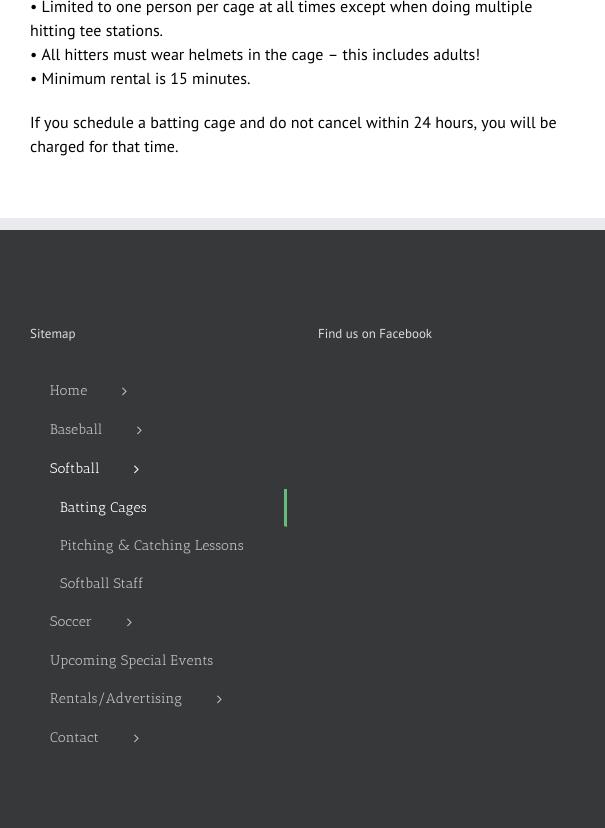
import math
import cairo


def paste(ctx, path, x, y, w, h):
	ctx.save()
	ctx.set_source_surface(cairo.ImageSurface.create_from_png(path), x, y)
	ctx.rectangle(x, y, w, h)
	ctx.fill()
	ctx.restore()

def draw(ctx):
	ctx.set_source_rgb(1, 1, 1)
	ctx.paint()
	ctx.select_font_face('PT Sans')
	ctx.set_font_size(16)
	ctx.set_source_rgb(0, 0, 0)
	for x, y, s in [
		(30, 12, '• Limited to one person per cage at all times except when doing multiple'),
		(30, 36, 'hitting tee stations.'),
		(30, 60, '• All hitters must wear helmets in the cage – this includes adults!'),
		(30, 84, '• Minimum rental is 15 minutes.'),
		(30, 128, 'If you schedule a batting cage and do not cancel within 24 hours, you will be'),
		(30, 152, 'charged for that time.'),
	]:
		ctx.move_to(x, y)
		ctx.show_text(s)
	ctx.set_source_rgb(0.212, 0.22, 0.224)
	ctx.rectangle(0, 230, 605, 598)
	ctx.fill()
	ctx.set_source_rgb(0.914, 0.918, 0.933)
	ctx.rectangle(0, 218, 605, 12)
	ctx.fill()
	ctx.set_font_size(13)
	ctx.set_source_rgb(0.867, 0.867, 0.867)
	ctx.move_to(30, 338)
	ctx.show_text('Sitemap')
	ctx.select_font_face('Antic Slab')
	ctx.set_font_size(14)
	ctx.set_source_rgb(0.749, 0.749, 0.749)
	ctx.move_to(50, 395)
	ctx.show_text('Home')
	paste(ctx, 'media/1.png', 122, 387, 5, 9)
	ctx.move_to(50, 434)
	ctx.show_text('Baseball')
	paste(ctx, 'media/1.png', 137, 426, 5, 9)
	ctx.set_source_rgb(1, 1, 1)
	ctx.move_to(50, 473)
	ctx.show_text('Softball')
	paste(ctx, 'media/2.png', 134, 465, 5, 9)
	ctx.set_source_rgb(0.396, 0.737, 0.482)
	ctx.new_path()
	ctx.move_to(287, 489)
	ctx.line_to(287, 527)
	ctx.line_to(284, 526)
	ctx.line_to(284, 489)
	ctx.close_path()
	ctx.fill()
	ctx.set_source_rgb(1, 1, 1)
	ctx.move_to(60, 512)
	ctx.show_text('Batting Cages')
	ctx.set_source_rgb(0.749, 0.749, 0.749)
	for x, y, s in [
		(60, 550, 'Pitching & Catching Lessons'),
		(60, 588, 'Softball Staff'),
		(50, 626, 'Soccer'),
	]:
		ctx.move_to(x, y)
		ctx.show_text(s)
	paste(ctx, 'media/1.png', 127, 618, 5, 9)
	ctx.move_to(50, 665)
	ctx.show_text('Upcoming Special Events')
	ctx.move_to(50, 703)
	ctx.show_text('Rentals/Advertising')
	paste(ctx, 'media/1.png', 217, 695, 5, 9)
	ctx.move_to(50, 742)
	ctx.show_text('Contact')
	paste(ctx, 'media/1.png', 134, 734, 5, 9)
	ctx.select_font_face('PT Sans')
	ctx.set_font_size(13)
	ctx.set_source_rgb(0.867, 0.867, 0.867)
	ctx.move_to(318, 338)
	ctx.show_text('Find us on Facebook')


surface = cairo.ImageSurface(cairo.FORMAT_RGB24, 605, 828)
ctx = cairo.Context(surface)
options = cairo.FontOptions()
options.set_hint_metrics(cairo.HINT_METRICS_OFF)
options.set_hint_style(cairo.HINT_STYLE_NONE)
ctx.set_font_options(options)
ctx.set_miter_limit(4)
draw(ctx)
surface.write_to_png('image.png')
